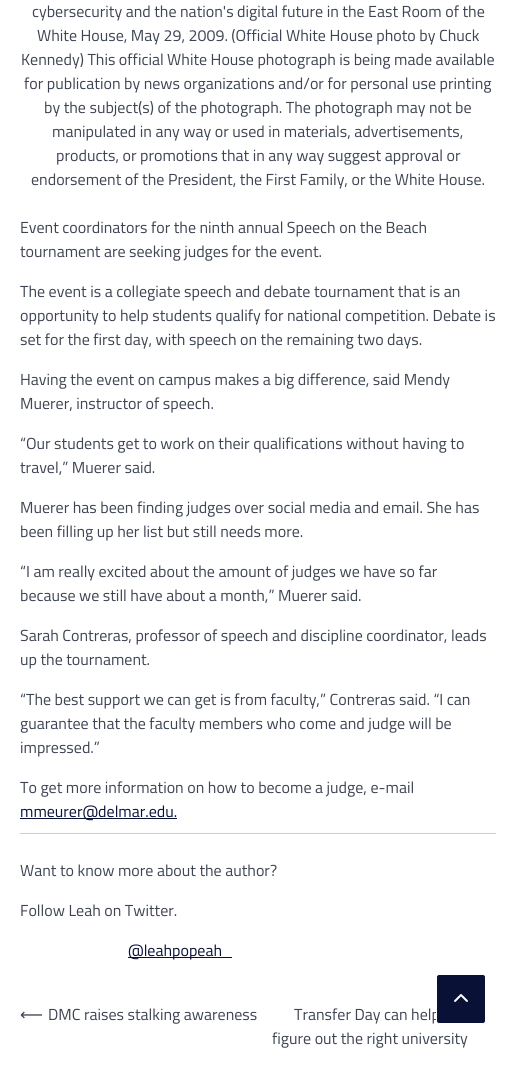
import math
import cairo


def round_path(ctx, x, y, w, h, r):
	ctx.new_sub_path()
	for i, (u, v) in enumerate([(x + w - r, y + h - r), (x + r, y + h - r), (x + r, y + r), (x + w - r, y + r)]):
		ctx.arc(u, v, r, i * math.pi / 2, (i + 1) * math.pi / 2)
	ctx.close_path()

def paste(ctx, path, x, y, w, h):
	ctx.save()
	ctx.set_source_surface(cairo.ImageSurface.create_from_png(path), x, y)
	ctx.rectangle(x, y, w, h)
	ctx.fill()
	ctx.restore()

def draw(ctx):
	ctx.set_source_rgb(1, 1, 1)
	ctx.paint()
	ctx.select_font_face('Titillium Web')
	ctx.set_font_size(16)
	ctx.set_source_rgb(0.239, 0.267, 0.322)
	for x, y, s in [
		(32, 17, 'cybersecurity and the nation\'s digital future in the East Room of the'),
		(37, 41, 'White House, May 29, 2009. (Official White House photo by Chuck'),
		(21, 65, 'Kennedy) This official White House photograph is being made available'),
		(24, 89, 'for publication by news organizations and/or for personal use printing'),
		(44, 113, 'by the subject(s) of the photograph. The photograph may not be'),
		(52, 137, 'manipulated in any way or used in materials, advertisements,'),
		(56, 161, 'products, or promotions that in any way suggest approval or'),
		(31, 185, 'endorsement of the President, the First Family, or the White House.'),
		(20, 233, 'Event coordinators for the ninth annual Speech on the Beach'),
		(20, 257, 'tournament are seeking judges for the event.'),
		(20, 297, 'The event is a collegiate speech and debate tournament that is an'),
		(20, 321, 'opportunity to help students qualify for national competition. Debate is'),
		(20, 345, 'set for the first day, with speech on the remaining two days.'),
		(20, 385, 'Having the event on campus makes a big difference, said Mendy'),
		(20, 409, 'Muerer, instructor of speech.'),
		(20, 449, '“Our students get to work on their qualifications without having to'),
		(20, 473, 'travel,” Muerer said.'),
		(20, 513, 'Muerer has been finding judges over social media and email. She has'),
		(20, 537, 'been filling up her list but still needs more.'),
		(20, 577, '“I am really excited about the amount of judges we have so far'),
		(20, 601, 'because we still have about a month,” Muerer said.'),
		(20, 641, 'Sarah Contreras, professor of speech and discipline coordinator, leads'),
		(20, 665, 'up the tournament.'),
		(20, 705, '“The best support we can get is from faculty,” Contreras said. “I can'),
		(20, 729, 'guarantee that the faculty members who come and judge will be'),
		(20, 753, 'impressed.”'),
		(20, 793, 'To get more information on how to become a judge, e-mail'),
	]:
		ctx.move_to(x, y)
		ctx.show_text(s)
	ctx.set_source_rgb(0.039, 0.067, 0.216)
	ctx.rectangle(20, 818, 157, 1)
	ctx.fill()
	ctx.move_to(20, 817)
	ctx.show_text('mmeurer@delmar.edu.')
	ctx.set_source_rgb(0.8, 0.8, 0.8)
	ctx.rectangle(20, 833, 476, 1)
	ctx.fill()
	ctx.set_source_rgb(0.239, 0.267, 0.322)
	ctx.move_to(20, 876)
	ctx.show_text('Want to know more about the author?')
	ctx.move_to(20, 916)
	ctx.show_text('Follow Leah on Twitter.')
	ctx.set_source_rgb(0.039, 0.067, 0.216)
	ctx.rectangle(128, 957, 104, 1)
	ctx.fill()
	ctx.move_to(128, 956)
	ctx.show_text('@leahpopeah')
	ctx.select_font_face('DejaVu Sans')
	ctx.set_source_rgb(0.239, 0.267, 0.322)
	ctx.move_to(20, 1020)
	ctx.show_text('⟵')
	ctx.select_font_face('Titillium Web')
	for x, y, s in [
		(48, 1020, 'DMC raises stalking awareness'),
		(294, 1020, 'Transfer Day can help'),
		(272, 1044, 'figure out the right university'),
	]:
		ctx.move_to(x, y)
		ctx.show_text(s)
	ctx.set_source_rgb(0.039, 0.067, 0.216)
	round_path(ctx, 436.5, 974.5, 49, 49, 2.5)
	ctx.fill_preserve()
	ctx.set_source_rgb(1, 1, 1)
	ctx.set_line_width(1)
	ctx.stroke()
	paste(ctx, 'media/1.png', 454, 994, 14, 8)


surface = cairo.ImageSurface(cairo.FORMAT_RGB24, 516, 1079)
ctx = cairo.Context(surface)
options = cairo.FontOptions()
options.set_hint_metrics(cairo.HINT_METRICS_OFF)
options.set_hint_style(cairo.HINT_STYLE_NONE)
ctx.set_font_options(options)
ctx.set_miter_limit(4)
draw(ctx)
surface.write_to_png('image.png')
